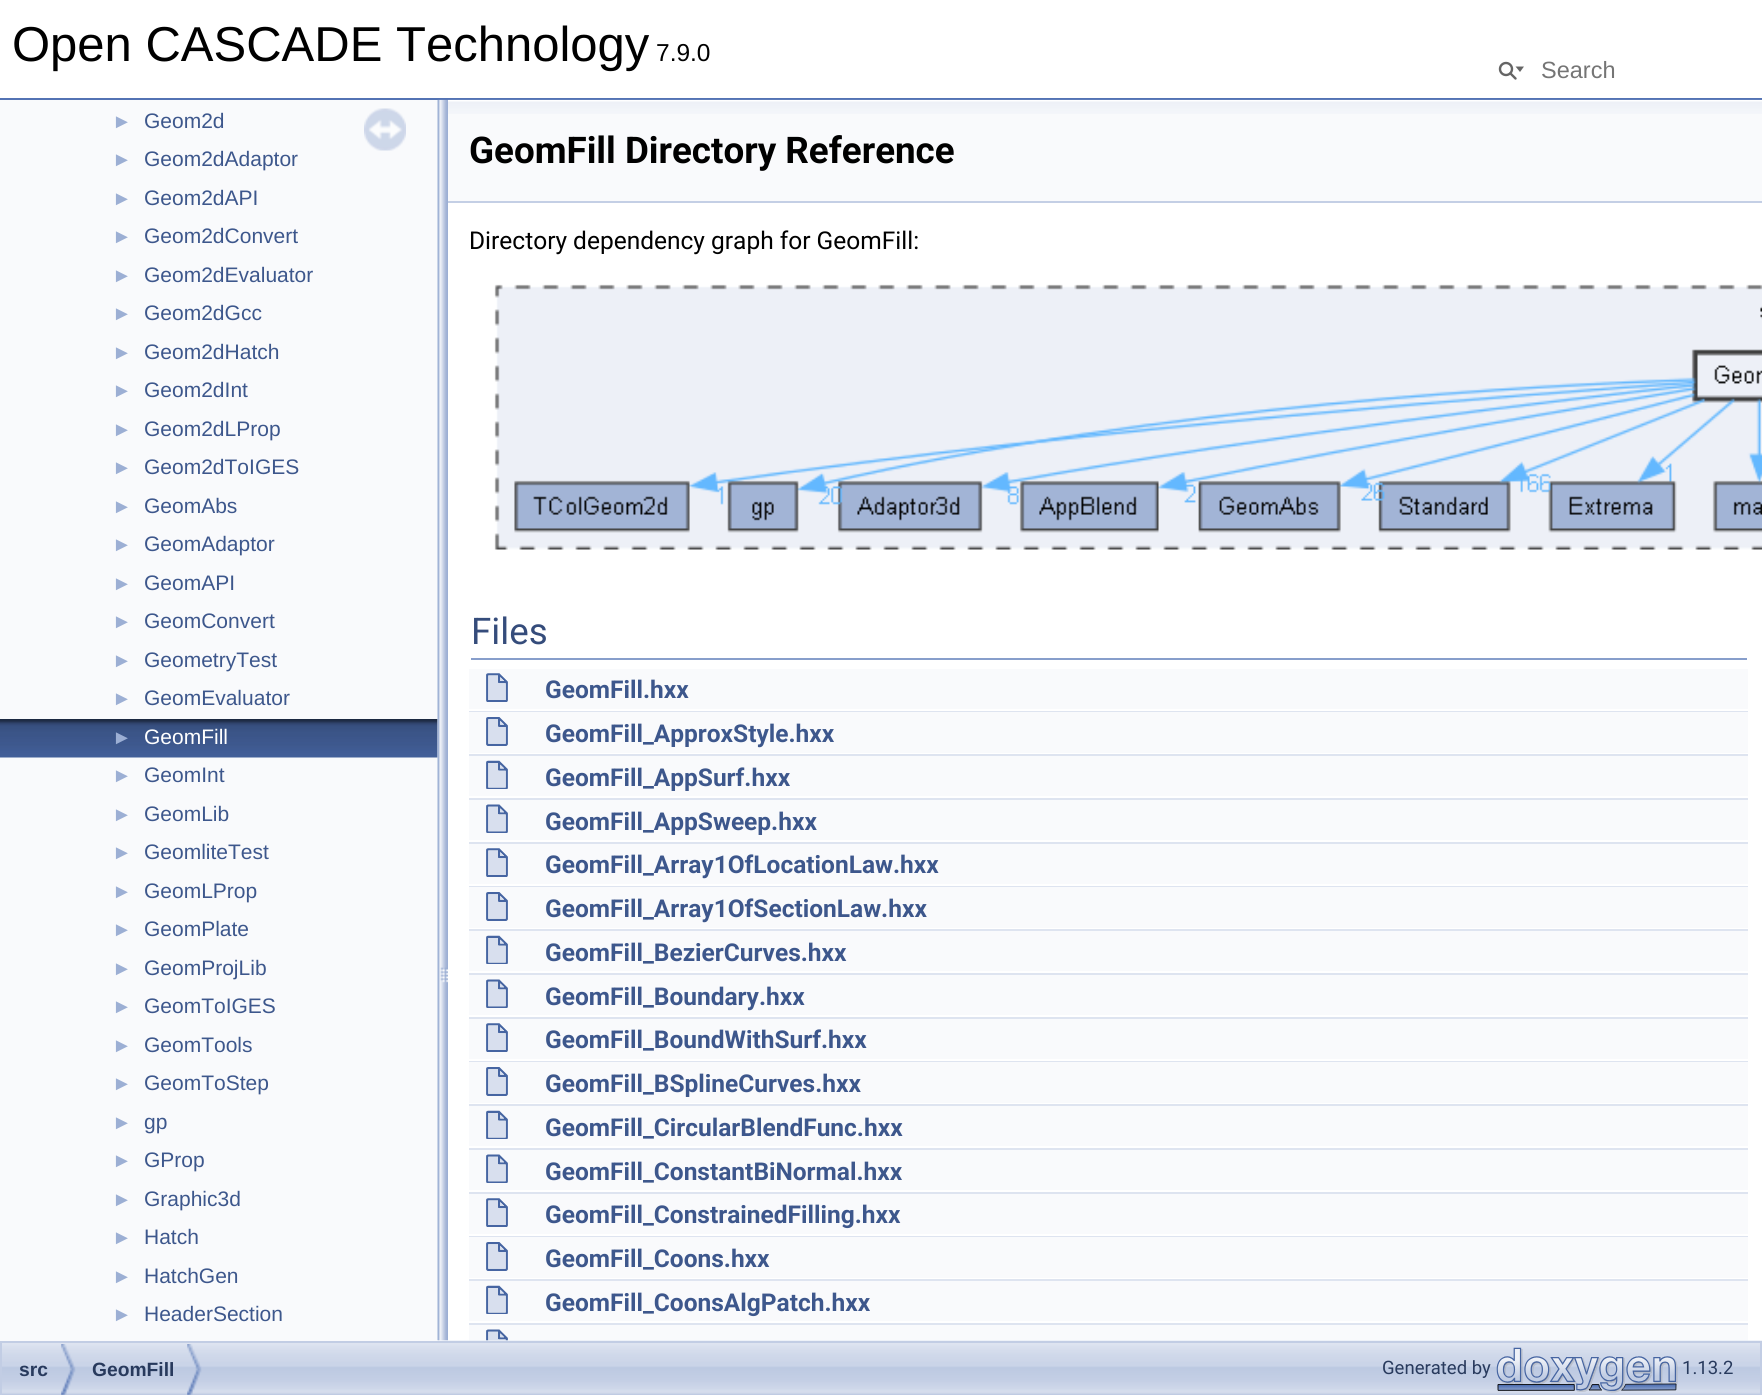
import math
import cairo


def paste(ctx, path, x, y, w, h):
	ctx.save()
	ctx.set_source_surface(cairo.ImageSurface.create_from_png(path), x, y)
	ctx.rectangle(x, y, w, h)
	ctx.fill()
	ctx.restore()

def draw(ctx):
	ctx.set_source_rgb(1, 1, 1)
	ctx.paint()
	ctx.set_source_rgb(0.325, 0.451, 0.706)
	ctx.rectangle(0, 98, 1762, 2)
	ctx.fill()
	ctx.select_font_face('Liberation Sans')
	ctx.set_font_size(49)
	ctx.set_source_rgb(0, 0, 0)
	ctx.move_to(12, 61)
	ctx.show_text('Open CASCADE Technology')
	ctx.set_font_size(24.5)
	ctx.move_to(656, 61)
	ctx.show_text('7.9.0')
	ctx.new_path()
	ctx.arc(1506, 69, 6, 0, 2 * math.pi)
	ctx.set_source_rgb(0.396, 0.396, 0.396)
	ctx.set_line_width(2.4)
	ctx.stroke()
	ctx.new_path()
	ctx.move_to(1515.5, 66.5)
	ctx.line_to(1520, 72)
	ctx.line_to(1524, 66.5)
	ctx.close_path()
	ctx.fill()
	ctx.new_path()
	ctx.move_to(1510.5, 73.5)
	ctx.line_to(1515.5, 78.5)
	ctx.set_line_cap(cairo.LINE_CAP_ROUND)
	ctx.stroke()
	ctx.set_font_size(23.5)
	ctx.set_source_rgb(0.459, 0.459, 0.459)
	ctx.move_to(1541, 78)
	ctx.show_text('Search')
	ctx.set_source_rgb(0.976, 0.98, 0.988)
	ctx.rectangle(469, 1325, 1279, 16)
	ctx.fill()
	paste(ctx, 'media/15.png', 486, 1329, 22, 12)
	paste(ctx, 'media/16.png', 2, 1340, 1760, 55)
	ctx.rectangle(0, 100, 438, 1241)
	ctx.fill()
	ctx.set_font_size(20)
	ctx.set_source_rgb(0.612, 0.686, 0.831)
	ctx.move_to(112, 128)
	ctx.show_text('►')
	ctx.set_font_size(21)
	ctx.set_source_rgb(0.239, 0.341, 0.549)
	ctx.move_to(144, 128)
	ctx.show_text('Geom2d')
	ctx.set_font_size(20)
	ctx.set_source_rgb(0.612, 0.686, 0.831)
	ctx.move_to(112, 166)
	ctx.show_text('►')
	ctx.set_font_size(21)
	ctx.set_source_rgb(0.239, 0.341, 0.549)
	ctx.move_to(144, 166)
	ctx.show_text('Geom2dAdaptor')
	ctx.set_font_size(20)
	ctx.set_source_rgb(0.612, 0.686, 0.831)
	ctx.move_to(112, 205)
	ctx.show_text('►')
	ctx.set_font_size(21)
	ctx.set_source_rgb(0.239, 0.341, 0.549)
	ctx.move_to(144, 205)
	ctx.show_text('Geom2dAPI')
	ctx.set_font_size(20)
	ctx.set_source_rgb(0.612, 0.686, 0.831)
	ctx.move_to(112, 243)
	ctx.show_text('►')
	ctx.set_font_size(21)
	ctx.set_source_rgb(0.239, 0.341, 0.549)
	ctx.move_to(144, 243)
	ctx.show_text('Geom2dConvert')
	ctx.set_font_size(20)
	ctx.set_source_rgb(0.612, 0.686, 0.831)
	ctx.move_to(112, 282)
	ctx.show_text('►')
	ctx.set_font_size(21)
	ctx.set_source_rgb(0.239, 0.341, 0.549)
	ctx.move_to(144, 282)
	ctx.show_text('Geom2dEvaluator')
	ctx.set_font_size(20)
	ctx.set_source_rgb(0.612, 0.686, 0.831)
	ctx.move_to(112, 320)
	ctx.show_text('►')
	ctx.set_font_size(21)
	ctx.set_source_rgb(0.239, 0.341, 0.549)
	ctx.move_to(144, 320)
	ctx.show_text('Geom2dGcc')
	ctx.set_font_size(20)
	ctx.set_source_rgb(0.612, 0.686, 0.831)
	ctx.move_to(112, 359)
	ctx.show_text('►')
	ctx.set_font_size(21)
	ctx.set_source_rgb(0.239, 0.341, 0.549)
	ctx.move_to(144, 359)
	ctx.show_text('Geom2dHatch')
	ctx.set_font_size(20)
	ctx.set_source_rgb(0.612, 0.686, 0.831)
	ctx.move_to(112, 397)
	ctx.show_text('►')
	ctx.set_font_size(21)
	ctx.set_source_rgb(0.239, 0.341, 0.549)
	ctx.move_to(144, 397)
	ctx.show_text('Geom2dInt')
	ctx.set_font_size(20)
	ctx.set_source_rgb(0.612, 0.686, 0.831)
	ctx.move_to(112, 436)
	ctx.show_text('►')
	ctx.set_font_size(21)
	ctx.set_source_rgb(0.239, 0.341, 0.549)
	ctx.move_to(144, 436)
	ctx.show_text('Geom2dLProp')
	ctx.set_font_size(20)
	ctx.set_source_rgb(0.612, 0.686, 0.831)
	ctx.move_to(112, 474)
	ctx.show_text('►')
	ctx.set_font_size(21)
	ctx.set_source_rgb(0.239, 0.341, 0.549)
	ctx.move_to(144, 474)
	ctx.show_text('Geom2dToIGES')
	ctx.set_font_size(20)
	ctx.set_source_rgb(0.612, 0.686, 0.831)
	ctx.move_to(112, 513)
	ctx.show_text('►')
	ctx.set_font_size(21)
	ctx.set_source_rgb(0.239, 0.341, 0.549)
	ctx.move_to(144, 513)
	ctx.show_text('GeomAbs')
	ctx.set_font_size(20)
	ctx.set_source_rgb(0.612, 0.686, 0.831)
	ctx.move_to(112, 551)
	ctx.show_text('►')
	ctx.set_font_size(21)
	ctx.set_source_rgb(0.239, 0.341, 0.549)
	ctx.move_to(144, 551)
	ctx.show_text('GeomAdaptor')
	ctx.set_font_size(20)
	ctx.set_source_rgb(0.612, 0.686, 0.831)
	ctx.move_to(112, 590)
	ctx.show_text('►')
	ctx.set_font_size(21)
	ctx.set_source_rgb(0.239, 0.341, 0.549)
	ctx.move_to(144, 590)
	ctx.show_text('GeomAPI')
	ctx.set_font_size(20)
	ctx.set_source_rgb(0.612, 0.686, 0.831)
	ctx.move_to(112, 628)
	ctx.show_text('►')
	ctx.set_font_size(21)
	ctx.set_source_rgb(0.239, 0.341, 0.549)
	ctx.move_to(144, 628)
	ctx.show_text('GeomConvert')
	ctx.set_font_size(20)
	ctx.set_source_rgb(0.612, 0.686, 0.831)
	ctx.move_to(112, 667)
	ctx.show_text('►')
	ctx.set_font_size(21)
	ctx.set_source_rgb(0.239, 0.341, 0.549)
	ctx.move_to(144, 667)
	ctx.show_text('GeometryTest')
	ctx.set_font_size(20)
	ctx.set_source_rgb(0.612, 0.686, 0.831)
	ctx.move_to(112, 705)
	ctx.show_text('►')
	ctx.set_font_size(21)
	ctx.set_source_rgb(0.239, 0.341, 0.549)
	ctx.move_to(144, 705)
	ctx.show_text('GeomEvaluator')
	paste(ctx, 'media/1.png', 0, 719, 438, 39)
	ctx.set_font_size(20)
	ctx.set_source_rgb(0.612, 0.686, 0.831)
	ctx.move_to(112, 744)
	ctx.show_text('►')
	ctx.set_font_size(21)
	ctx.set_source_rgb(1, 1, 1)
	ctx.move_to(144, 744)
	ctx.show_text('GeomFill')
	ctx.set_font_size(20)
	ctx.set_source_rgb(0.612, 0.686, 0.831)
	ctx.move_to(112, 782)
	ctx.show_text('►')
	ctx.set_font_size(21)
	ctx.set_source_rgb(0.239, 0.341, 0.549)
	ctx.move_to(144, 782)
	ctx.show_text('GeomInt')
	ctx.set_font_size(20)
	ctx.set_source_rgb(0.612, 0.686, 0.831)
	ctx.move_to(112, 821)
	ctx.show_text('►')
	ctx.set_font_size(21)
	ctx.set_source_rgb(0.239, 0.341, 0.549)
	ctx.move_to(144, 821)
	ctx.show_text('GeomLib')
	ctx.set_font_size(20)
	ctx.set_source_rgb(0.612, 0.686, 0.831)
	ctx.move_to(112, 859)
	ctx.show_text('►')
	ctx.set_font_size(21)
	ctx.set_source_rgb(0.239, 0.341, 0.549)
	ctx.move_to(144, 859)
	ctx.show_text('GeomliteTest')
	ctx.set_font_size(20)
	ctx.set_source_rgb(0.612, 0.686, 0.831)
	ctx.move_to(112, 898)
	ctx.show_text('►')
	ctx.set_font_size(21)
	ctx.set_source_rgb(0.239, 0.341, 0.549)
	ctx.move_to(144, 898)
	ctx.show_text('GeomLProp')
	ctx.set_font_size(20)
	ctx.set_source_rgb(0.612, 0.686, 0.831)
	ctx.move_to(112, 936)
	ctx.show_text('►')
	ctx.set_font_size(21)
	ctx.set_source_rgb(0.239, 0.341, 0.549)
	ctx.move_to(144, 936)
	ctx.show_text('GeomPlate')
	ctx.set_font_size(20)
	ctx.set_source_rgb(0.612, 0.686, 0.831)
	ctx.move_to(112, 975)
	ctx.show_text('►')
	ctx.set_font_size(21)
	ctx.set_source_rgb(0.239, 0.341, 0.549)
	ctx.move_to(144, 975)
	ctx.show_text('GeomProjLib')
	ctx.set_font_size(20)
	ctx.set_source_rgb(0.612, 0.686, 0.831)
	ctx.move_to(112, 1013)
	ctx.show_text('►')
	ctx.set_font_size(21)
	ctx.set_source_rgb(0.239, 0.341, 0.549)
	ctx.move_to(144, 1013)
	ctx.show_text('GeomToIGES')
	ctx.set_font_size(20)
	ctx.set_source_rgb(0.612, 0.686, 0.831)
	ctx.move_to(112, 1052)
	ctx.show_text('►')
	ctx.set_font_size(21)
	ctx.set_source_rgb(0.239, 0.341, 0.549)
	ctx.move_to(144, 1052)
	ctx.show_text('GeomTools')
	ctx.set_font_size(20)
	ctx.set_source_rgb(0.612, 0.686, 0.831)
	ctx.move_to(112, 1090)
	ctx.show_text('►')
	ctx.set_font_size(21)
	ctx.set_source_rgb(0.239, 0.341, 0.549)
	ctx.move_to(144, 1090)
	ctx.show_text('GeomToStep')
	ctx.set_font_size(20)
	ctx.set_source_rgb(0.612, 0.686, 0.831)
	ctx.move_to(112, 1129)
	ctx.show_text('►')
	ctx.set_font_size(21)
	ctx.set_source_rgb(0.239, 0.341, 0.549)
	ctx.move_to(144, 1129)
	ctx.show_text('gp')
	ctx.set_font_size(20)
	ctx.set_source_rgb(0.612, 0.686, 0.831)
	ctx.move_to(112, 1167)
	ctx.show_text('►')
	ctx.set_font_size(21)
	ctx.set_source_rgb(0.239, 0.341, 0.549)
	ctx.move_to(144, 1167)
	ctx.show_text('GProp')
	ctx.set_font_size(20)
	ctx.set_source_rgb(0.612, 0.686, 0.831)
	ctx.move_to(112, 1206)
	ctx.show_text('►')
	ctx.set_font_size(21)
	ctx.set_source_rgb(0.239, 0.341, 0.549)
	ctx.move_to(144, 1206)
	ctx.show_text('Graphic3d')
	ctx.set_font_size(20)
	ctx.set_source_rgb(0.612, 0.686, 0.831)
	ctx.move_to(112, 1244)
	ctx.show_text('►')
	ctx.set_font_size(21)
	ctx.set_source_rgb(0.239, 0.341, 0.549)
	ctx.move_to(144, 1244)
	ctx.show_text('Hatch')
	ctx.set_font_size(20)
	ctx.set_source_rgb(0.612, 0.686, 0.831)
	ctx.move_to(112, 1283)
	ctx.show_text('►')
	ctx.set_font_size(21)
	ctx.set_source_rgb(0.239, 0.341, 0.549)
	ctx.move_to(144, 1283)
	ctx.show_text('HatchGen')
	ctx.set_font_size(20)
	ctx.set_source_rgb(0.612, 0.686, 0.831)
	ctx.move_to(112, 1321)
	ctx.show_text('►')
	ctx.set_font_size(21)
	ctx.set_source_rgb(0.239, 0.341, 0.549)
	ctx.move_to(144, 1321)
	ctx.show_text('HeaderSection')
	paste(ctx, 'media/2.png', 364, 108, 42, 43)
	paste(ctx, 'media/3.png', 437, 99, 11, 1242)
	ctx.set_source_rgb(0.976, 0.98, 0.988)
	ctx.rectangle(448, 114, 1314, 87)
	ctx.fill()
	paste(ctx, 'media/4.png', 448, 99, 1314, 15)
	ctx.set_source_rgb(0.769, 0.812, 0.898)
	ctx.rectangle(448, 201, 1314, 2)
	ctx.fill()
	ctx.select_font_face('Roboto', cairo.FONT_SLANT_NORMAL, cairo.FONT_WEIGHT_BOLD)
	ctx.set_font_size(36.75)
	ctx.set_source_rgb(0, 0, 0)
	ctx.move_to(469, 163)
	ctx.show_text('GeomFill Directory Reference')
	ctx.select_font_face('Roboto')
	ctx.set_font_size(24.5)
	ctx.move_to(469, 249)
	ctx.show_text('Directory dependency graph for GeomFill:')
	paste(ctx, 'media/5.png', 494, 284, 1268, 266)
	ctx.set_source_rgb(0.529, 0.62, 0.796)
	ctx.rectangle(471, 658, 1276, 2)
	ctx.fill()
	ctx.set_font_size(36.75)
	ctx.set_source_rgb(0.208, 0.298, 0.482)
	ctx.move_to(471, 644)
	ctx.show_text('Files')
	ctx.set_source_rgb(0.976, 0.98, 0.988)
	ctx.rectangle(469, 669, 1279, 40)
	ctx.fill()
	paste(ctx, 'media/6.png', 486, 673, 22, 29)
	ctx.select_font_face('Roboto', cairo.FONT_SLANT_NORMAL, cairo.FONT_WEIGHT_BOLD)
	ctx.set_font_size(24.5)
	ctx.set_source_rgb(0.239, 0.341, 0.549)
	ctx.move_to(545, 698)
	ctx.show_text('GeomFill.hxx')
	ctx.set_source_rgb(0.871, 0.894, 0.941)
	ctx.rectangle(469, 711, 1279, 1)
	ctx.fill()
	ctx.set_source_rgb(0.976, 0.98, 0.988)
	ctx.rectangle(469, 712, 1279, 41)
	ctx.fill()
	paste(ctx, 'media/7.png', 486, 717, 22, 29)
	ctx.set_source_rgb(0.239, 0.341, 0.549)
	ctx.move_to(545, 742)
	ctx.show_text('GeomFill_ApproxStyle.hxx')
	ctx.set_source_rgb(0.871, 0.894, 0.941)
	ctx.rectangle(469, 754, 1279, 2)
	ctx.fill()
	ctx.set_source_rgb(0.976, 0.98, 0.988)
	ctx.rectangle(469, 756, 1279, 40)
	ctx.fill()
	paste(ctx, 'media/8.png', 486, 760, 22, 29)
	ctx.set_source_rgb(0.239, 0.341, 0.549)
	ctx.move_to(545, 786)
	ctx.show_text('GeomFill_AppSurf.hxx')
	ctx.set_source_rgb(0.871, 0.894, 0.941)
	ctx.rectangle(469, 798, 1279, 2)
	ctx.fill()
	ctx.set_source_rgb(0.976, 0.98, 0.988)
	ctx.rectangle(469, 800, 1279, 40)
	ctx.fill()
	paste(ctx, 'media/9.png', 486, 804, 22, 29)
	ctx.set_source_rgb(0.239, 0.341, 0.549)
	ctx.move_to(545, 830)
	ctx.show_text('GeomFill_AppSweep.hxx')
	ctx.set_source_rgb(0.871, 0.894, 0.941)
	ctx.rectangle(469, 842, 1279, 2)
	ctx.fill()
	ctx.set_source_rgb(0.976, 0.98, 0.988)
	ctx.rectangle(469, 844, 1279, 40)
	ctx.fill()
	paste(ctx, 'media/10.png', 486, 848, 22, 29)
	ctx.set_source_rgb(0.239, 0.341, 0.549)
	ctx.move_to(545, 873)
	ctx.show_text('GeomFill_Array1OfLocationLaw.hxx')
	ctx.set_source_rgb(0.871, 0.894, 0.941)
	ctx.rectangle(469, 886, 1279, 1)
	ctx.fill()
	ctx.set_source_rgb(0.976, 0.98, 0.988)
	ctx.rectangle(469, 887, 1279, 41)
	ctx.fill()
	paste(ctx, 'media/7.png', 486, 892, 22, 29)
	ctx.set_source_rgb(0.239, 0.341, 0.549)
	ctx.move_to(545, 917)
	ctx.show_text('GeomFill_Array1OfSectionLaw.hxx')
	ctx.set_source_rgb(0.871, 0.894, 0.941)
	ctx.rectangle(469, 929, 1279, 2)
	ctx.fill()
	ctx.set_source_rgb(0.976, 0.98, 0.988)
	ctx.rectangle(469, 931, 1279, 40)
	ctx.fill()
	paste(ctx, 'media/11.png', 486, 935, 22, 29)
	ctx.set_source_rgb(0.239, 0.341, 0.549)
	ctx.move_to(545, 961)
	ctx.show_text('GeomFill_BezierCurves.hxx')
	ctx.set_source_rgb(0.871, 0.894, 0.941)
	ctx.rectangle(469, 973, 1279, 2)
	ctx.fill()
	ctx.set_source_rgb(0.976, 0.98, 0.988)
	ctx.rectangle(469, 975, 1279, 40)
	ctx.fill()
	paste(ctx, 'media/12.png', 486, 979, 22, 29)
	ctx.set_source_rgb(0.239, 0.341, 0.549)
	ctx.move_to(545, 1005)
	ctx.show_text('GeomFill_Boundary.hxx')
	ctx.set_source_rgb(0.871, 0.894, 0.941)
	ctx.rectangle(469, 1017, 1279, 2)
	ctx.fill()
	ctx.set_source_rgb(0.976, 0.98, 0.988)
	ctx.rectangle(469, 1019, 1279, 40)
	ctx.fill()
	paste(ctx, 'media/6.png', 486, 1023, 22, 29)
	ctx.set_source_rgb(0.239, 0.341, 0.549)
	ctx.move_to(545, 1048)
	ctx.show_text('GeomFill_BoundWithSurf.hxx')
	ctx.set_source_rgb(0.871, 0.894, 0.941)
	ctx.rectangle(469, 1061, 1279, 1)
	ctx.fill()
	ctx.set_source_rgb(0.976, 0.98, 0.988)
	ctx.rectangle(469, 1062, 1279, 41)
	ctx.fill()
	paste(ctx, 'media/13.png', 486, 1067, 22, 29)
	ctx.set_source_rgb(0.239, 0.341, 0.549)
	ctx.move_to(545, 1092)
	ctx.show_text('GeomFill_BSplineCurves.hxx')
	ctx.set_source_rgb(0.871, 0.894, 0.941)
	ctx.rectangle(469, 1104, 1279, 2)
	ctx.fill()
	ctx.set_source_rgb(0.976, 0.98, 0.988)
	ctx.rectangle(469, 1106, 1279, 40)
	ctx.fill()
	paste(ctx, 'media/14.png', 486, 1110, 22, 29)
	ctx.set_source_rgb(0.239, 0.341, 0.549)
	ctx.move_to(545, 1136)
	ctx.show_text('GeomFill_CircularBlendFunc.hxx')
	ctx.set_source_rgb(0.871, 0.894, 0.941)
	ctx.rectangle(469, 1148, 1279, 2)
	ctx.fill()
	ctx.set_source_rgb(0.976, 0.98, 0.988)
	ctx.rectangle(469, 1150, 1279, 40)
	ctx.fill()
	paste(ctx, 'media/12.png', 486, 1154, 22, 29)
	ctx.set_source_rgb(0.239, 0.341, 0.549)
	ctx.move_to(545, 1180)
	ctx.show_text('GeomFill_ConstantBiNormal.hxx')
	ctx.set_source_rgb(0.871, 0.894, 0.941)
	ctx.rectangle(469, 1192, 1279, 2)
	ctx.fill()
	ctx.set_source_rgb(0.976, 0.98, 0.988)
	ctx.rectangle(469, 1194, 1279, 40)
	ctx.fill()
	paste(ctx, 'media/6.png', 486, 1198, 22, 29)
	ctx.set_source_rgb(0.239, 0.341, 0.549)
	ctx.move_to(545, 1223)
	ctx.show_text('GeomFill_ConstrainedFilling.hxx')
	ctx.set_source_rgb(0.871, 0.894, 0.941)
	ctx.rectangle(469, 1236, 1279, 1)
	ctx.fill()
	ctx.set_source_rgb(0.976, 0.98, 0.988)
	ctx.rectangle(469, 1237, 1279, 41)
	ctx.fill()
	paste(ctx, 'media/7.png', 486, 1242, 22, 29)
	ctx.set_source_rgb(0.239, 0.341, 0.549)
	ctx.move_to(545, 1267)
	ctx.show_text('GeomFill_Coons.hxx')
	ctx.set_source_rgb(0.871, 0.894, 0.941)
	ctx.rectangle(469, 1279, 1279, 2)
	ctx.fill()
	ctx.set_source_rgb(0.976, 0.98, 0.988)
	ctx.rectangle(469, 1281, 1279, 40)
	ctx.fill()
	paste(ctx, 'media/11.png', 486, 1285, 22, 29)
	ctx.set_source_rgb(0.239, 0.341, 0.549)
	ctx.move_to(545, 1311)
	ctx.show_text('GeomFill_CoonsAlgPatch.hxx')
	ctx.set_source_rgb(0.871, 0.894, 0.941)
	ctx.rectangle(469, 1323, 1279, 2)
	ctx.fill()
	ctx.rectangle(1, 1342, 1760, 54)
	ctx.set_source_rgb(0.761, 0.804, 0.894)
	ctx.set_line_width(2)
	ctx.set_line_cap(cairo.LINE_CAP_BUTT)
	ctx.stroke()
	paste(ctx, 'media/17.png', 61, 1344, 15, 51)
	ctx.select_font_face('Liberation Sans', cairo.FONT_SLANT_NORMAL, cairo.FONT_WEIGHT_BOLD)
	ctx.set_font_size(19.25)
	ctx.set_source_rgb(0.157, 0.227, 0.365)
	ctx.move_to(19, 1376)
	ctx.show_text('src')
	paste(ctx, 'media/18.png', 187, 1344, 15, 51)
	ctx.move_to(92, 1376)
	ctx.show_text('GeomFill')
	ctx.select_font_face('Roboto')
	ctx.set_font_size(18.5)
	ctx.move_to(1382, 1374)
	ctx.show_text('Generated by')
	paste(ctx, 'media/19.png', 1496, 1347, 182, 46)
	ctx.move_to(1682, 1374)
	ctx.show_text('1.13.2')


surface = cairo.ImageSurface(cairo.FORMAT_RGB24, 1762, 1395)
ctx = cairo.Context(surface)
options = cairo.FontOptions()
options.set_hint_metrics(cairo.HINT_METRICS_OFF)
options.set_hint_style(cairo.HINT_STYLE_NONE)
ctx.set_font_options(options)
ctx.set_miter_limit(4)
draw(ctx)
surface.write_to_png('image.png')
